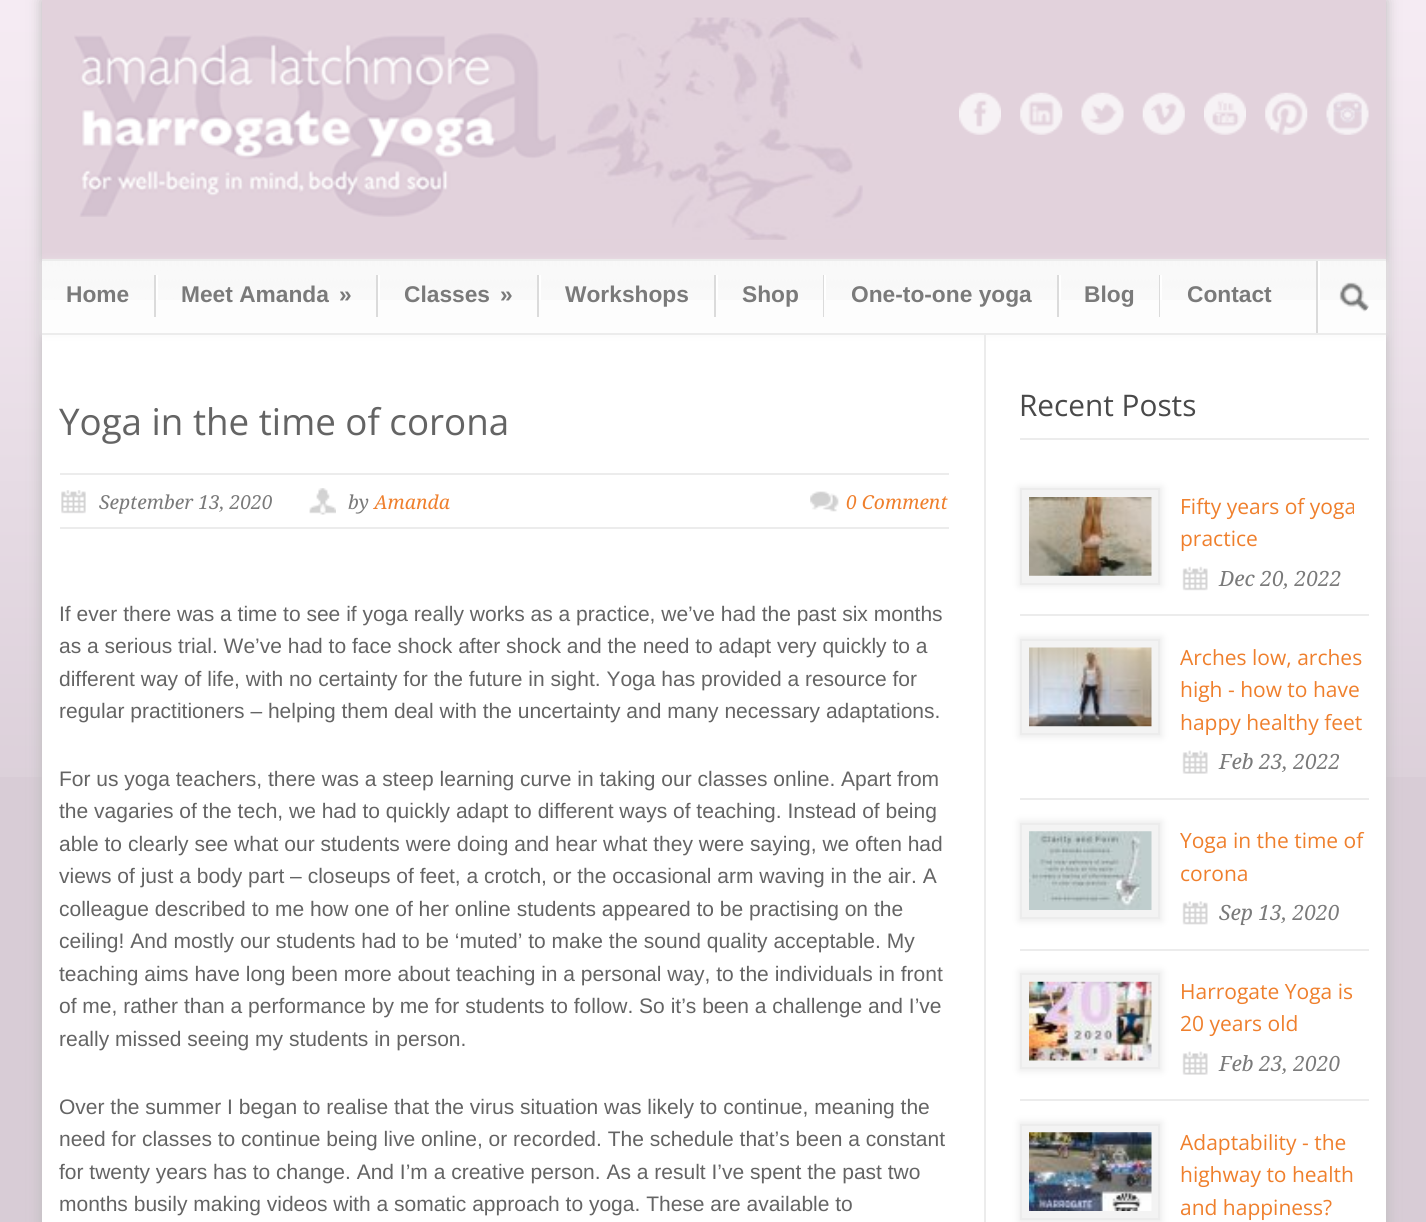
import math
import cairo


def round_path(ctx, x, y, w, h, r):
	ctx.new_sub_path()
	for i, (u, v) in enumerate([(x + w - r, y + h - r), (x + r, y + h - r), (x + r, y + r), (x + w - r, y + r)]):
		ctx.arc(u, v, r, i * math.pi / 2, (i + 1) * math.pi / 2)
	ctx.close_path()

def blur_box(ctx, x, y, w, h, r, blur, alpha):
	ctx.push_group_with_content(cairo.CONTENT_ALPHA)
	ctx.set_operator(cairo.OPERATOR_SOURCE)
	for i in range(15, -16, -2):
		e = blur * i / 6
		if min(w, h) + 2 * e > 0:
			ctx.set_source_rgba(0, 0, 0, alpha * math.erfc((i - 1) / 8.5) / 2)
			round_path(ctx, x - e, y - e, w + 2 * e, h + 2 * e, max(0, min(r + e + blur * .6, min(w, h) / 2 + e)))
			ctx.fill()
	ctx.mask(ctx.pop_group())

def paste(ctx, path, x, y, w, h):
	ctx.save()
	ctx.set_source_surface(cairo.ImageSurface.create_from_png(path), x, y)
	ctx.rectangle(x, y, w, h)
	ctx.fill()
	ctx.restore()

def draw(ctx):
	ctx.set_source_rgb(0.847, 0.8, 0.839)
	ctx.paint()
	paste(ctx, 'media/1.png', 0, 0, 1426, 777)
	ctx.set_source_rgb(0.733, 0.733, 0.733)
	blur_box(ctx, 42, 0, 1344, 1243, 0, 7, 1)
	ctx.set_source_rgb(1, 1, 1)
	ctx.rectangle(42, 335, 1344, 887)
	ctx.fill()
	ctx.set_source_rgb(0.886, 0.824, 0.863)
	ctx.rectangle(42, 0, 1344, 259)
	ctx.fill()
	paste(ctx, 'media/2.png', 567, 17, 296, 223)
	paste(ctx, 'media/3.png', 74, 33, 482, 184)
	paste(ctx, 'media/4.png', 959, 92, 42, 43)
	paste(ctx, 'media/5.png', 1020, 92, 43, 43)
	paste(ctx, 'media/6.png', 1081, 92, 43, 43)
	paste(ctx, 'media/7.png', 1142, 92, 43, 43)
	paste(ctx, 'media/8.png', 1204, 92, 42, 43)
	paste(ctx, 'media/9.png', 1265, 92, 43, 43)
	paste(ctx, 'media/10.png', 1326, 92, 43, 43)
	ctx.set_source_rgb(0.961, 0.961, 0.961)
	blur_box(ctx, 44, 263, 1340, 71, 0, 4.5, 1)
	ctx.set_source_rgb(0.992, 0.992, 0.992)
	ctx.rectangle(42, 261, 1344, 72)
	ctx.fill()
	paste(ctx, 'media/11.png', 42, 261, 1344, 39)
	ctx.set_source_rgb(0.925, 0.925, 0.925)
	ctx.rectangle(42, 259, 1344, 2)
	ctx.rectangle(42, 333, 1344, 2)
	ctx.fill()
	ctx.set_source_rgb(0.859, 0.859, 0.859)
	ctx.rectangle(154, 275, 2, 42)
	ctx.fill()
	ctx.select_font_face('Liberation Sans', cairo.FONT_SLANT_NORMAL, cairo.FONT_WEIGHT_BOLD)
	ctx.set_font_size(22.75)
	ctx.set_source_rgb(0.478, 0.478, 0.478)
	ctx.move_to(66, 302)
	ctx.show_text('Home')
	ctx.set_source_rgb(0.859, 0.859, 0.859)
	ctx.rectangle(376, 275, 2, 42)
	ctx.fill()
	ctx.set_source_rgb(1, 1, 1)
	ctx.rectangle(156, 275, 2, 25)
	ctx.fill()
	ctx.set_source_rgb(0.478, 0.478, 0.478)
	ctx.move_to(181, 302)
	ctx.show_text('Meet Amanda')
	ctx.move_to(339, 302)
	ctx.show_text('»')
	ctx.set_source_rgb(0.859, 0.859, 0.859)
	ctx.rectangle(537, 275, 2, 42)
	ctx.fill()
	ctx.set_source_rgb(1, 1, 1)
	ctx.rectangle(378, 275, 2, 25)
	ctx.fill()
	ctx.set_source_rgb(0.478, 0.478, 0.478)
	ctx.move_to(404, 302)
	ctx.show_text('Classes')
	ctx.move_to(500, 302)
	ctx.show_text('»')
	ctx.set_source_rgb(0.859, 0.859, 0.859)
	ctx.rectangle(714, 275, 2, 42)
	ctx.fill()
	ctx.set_source_rgb(1, 1, 1)
	ctx.rectangle(539, 275, 2, 25)
	ctx.fill()
	ctx.set_source_rgb(0.478, 0.478, 0.478)
	ctx.move_to(565, 302)
	ctx.show_text('Workshops')
	ctx.set_source_rgb(0.859, 0.859, 0.859)
	ctx.rectangle(823, 275, 1, 42)
	ctx.fill()
	ctx.set_source_rgb(1, 1, 1)
	ctx.rectangle(716, 275, 2, 25)
	ctx.fill()
	ctx.set_source_rgb(0.478, 0.478, 0.478)
	ctx.move_to(742, 302)
	ctx.show_text('Shop')
	ctx.set_source_rgb(0.859, 0.859, 0.859)
	ctx.rectangle(1057, 275, 2, 42)
	ctx.fill()
	ctx.set_source_rgb(1, 1, 1)
	ctx.rectangle(824, 275, 2, 25)
	ctx.fill()
	ctx.set_source_rgb(0.478, 0.478, 0.478)
	ctx.move_to(851, 302)
	ctx.show_text('One-to-one yoga')
	ctx.set_source_rgb(0.859, 0.859, 0.859)
	ctx.rectangle(1159, 275, 1, 42)
	ctx.fill()
	ctx.set_source_rgb(1, 1, 1)
	ctx.rectangle(1059, 275, 2, 25)
	ctx.fill()
	ctx.set_source_rgb(0.478, 0.478, 0.478)
	ctx.move_to(1084, 302)
	ctx.show_text('Blog')
	ctx.set_source_rgb(1, 1, 1)
	ctx.rectangle(1160, 275, 2, 25)
	ctx.fill()
	ctx.set_source_rgb(0.478, 0.478, 0.478)
	ctx.move_to(1187, 302)
	ctx.show_text('Contact')
	ctx.set_source_rgb(0.859, 0.859, 0.859)
	ctx.rectangle(1316, 261, 2, 72)
	ctx.fill()
	ctx.set_source_rgb(1, 1, 1)
	ctx.rectangle(1318, 261, 2, 39)
	ctx.fill()
	paste(ctx, 'media/12.png', 1339, 282, 30, 30)
	ctx.select_font_face('Open Sans')
	ctx.set_font_size(36.75)
	ctx.set_source_rgb(0.392, 0.392, 0.392)
	ctx.move_to(59, 435)
	ctx.show_text('Yoga in the time of corona')
	ctx.set_source_rgb(0.925, 0.925, 0.925)
	ctx.rectangle(60, 473, 889, 2)
	ctx.fill()
	ctx.rectangle(60, 527, 889, 2)
	ctx.fill()
	paste(ctx, 'media/13.png', 61, 490, 25, 24)
	ctx.select_font_face('Droid Serif', cairo.FONT_SLANT_ITALIC)
	ctx.set_font_size(19.25)
	ctx.set_source_rgb(0.478, 0.478, 0.478)
	ctx.move_to(99, 509)
	ctx.show_text('September 13, 2020')
	paste(ctx, 'media/14.png', 309, 488, 27, 27)
	ctx.move_to(348, 509)
	ctx.show_text('by')
	ctx.set_source_rgb(0.937, 0.498, 0.173)
	ctx.move_to(374, 509)
	ctx.show_text('Amanda')
	paste(ctx, 'media/15.png', 810, 491, 29, 21)
	ctx.move_to(846, 509)
	ctx.show_text('0 Comment')
	ctx.select_font_face('Liberation Sans')
	ctx.set_font_size(21)
	ctx.set_source_rgb(0.392, 0.392, 0.392)
	for x, y, s in [
		(59, 621, 'If ever there was a time to see if yoga really works as a practice, we’ve had the past six months'),
		(59, 653, 'as a serious trial. We’ve had to face shock after shock and the need to adapt very quickly to a'),
		(59, 686, 'different way of life, with no certainty for the future in sight. Yoga has provided a resource for'),
		(59, 718, 'regular practitioners – helping them deal with the uncertainty and many necessary adaptations.'),
		(59, 786, 'For us yoga teachers, there was a steep learning curve in taking our classes online. Apart from'),
		(59, 818, 'the vagaries of the tech, we had to quickly adapt to different ways of teaching. Instead of being'),
		(59, 851, 'able to clearly see what our students were doing and hear what they were saying, we often had'),
		(59, 883, 'views of just a body part – closeups of feet, a crotch, or the occasional arm waving in the air. A'),
		(59, 916, 'colleague described to me how one of her online students appeared to be practising on the'),
		(59, 948, 'ceiling! And mostly our students had to be ‘muted’ to make the sound quality acceptable. My'),
		(59, 981, 'teaching aims have long been more about teaching in a personal way, to the individuals in front'),
		(59, 1013, 'of me, rather than a performance by me for students to follow. So it’s been a challenge and I’ve'),
		(59, 1046, 'really missed seeing my students in person.'),
		(59, 1114, 'Over the summer I began to realise that the virus situation was likely to continue, meaning the'),
		(59, 1146, 'need for classes to continue being live online, or recorded. The schedule that’s been a constant'),
		(59, 1179, 'for twenty years has to change. And I’m a creative person. As a result I’ve spent the past two'),
		(59, 1211, 'months busily making videos with a somatic approach to yoga. These are available to'),
	]:
		ctx.move_to(x, y)
		ctx.show_text(s)
	ctx.set_source_rgb(0.925, 0.925, 0.925)
	ctx.rectangle(984, 334, 2, 888)
	ctx.fill()
	ctx.rectangle(1020, 438, 349, 2)
	ctx.fill()
	ctx.select_font_face('Open Sans')
	ctx.set_font_size(29.75)
	ctx.set_source_rgb(0.286, 0.286, 0.286)
	ctx.move_to(1019, 416)
	ctx.show_text('Recent Posts')
	ctx.set_source_rgb(0.925, 0.925, 0.925)
	ctx.rectangle(1020, 614, 349, 2)
	ctx.fill()
	ctx.set_source_rgb(0.925, 0.925, 0.925)
	blur_box(ctx, 1019, 487, 143, 99, 0, 3.5, 1)
	ctx.set_source_rgb(0.953, 0.953, 0.953)
	ctx.rectangle(1021, 489, 138, 95)
	ctx.fill_preserve()
	ctx.set_source_rgb(0.925, 0.925, 0.925)
	ctx.stroke()
	paste(ctx, 'media/16.png', 1029, 497, 123, 79)
	ctx.set_font_size(21)
	ctx.set_source_rgb(0.937, 0.498, 0.173)
	ctx.move_to(1180, 514)
	ctx.show_text('Fifty years of yoga')
	ctx.move_to(1180, 546)
	ctx.show_text('practice')
	paste(ctx, 'media/17.png', 1182, 566, 26, 25)
	ctx.select_font_face('Droid Serif', cairo.FONT_SLANT_ITALIC)
	ctx.set_source_rgb(0.478, 0.478, 0.478)
	ctx.move_to(1219, 586)
	ctx.show_text('Dec 20, 2022')
	ctx.set_source_rgb(0.925, 0.925, 0.925)
	ctx.rectangle(1020, 798, 349, 2)
	ctx.fill()
	ctx.set_source_rgb(0.925, 0.925, 0.925)
	blur_box(ctx, 1019, 637, 143, 100, 0, 3.5, 1)
	ctx.set_source_rgb(0.953, 0.953, 0.953)
	ctx.rectangle(1021, 640, 138, 94)
	ctx.fill_preserve()
	ctx.set_source_rgb(0.925, 0.925, 0.925)
	ctx.stroke()
	paste(ctx, 'media/18.png', 1029, 647, 123, 80)
	ctx.select_font_face('Open Sans')
	ctx.set_source_rgb(0.937, 0.498, 0.173)
	for x, y, s in [
		(1180, 665, 'Arches low, arches'),
		(1180, 697, 'high - how to have'),
		(1180, 730, 'happy healthy feet'),
	]:
		ctx.move_to(x, y)
		ctx.show_text(s)
	paste(ctx, 'media/19.png', 1182, 750, 26, 24)
	ctx.select_font_face('Droid Serif', cairo.FONT_SLANT_ITALIC)
	ctx.set_source_rgb(0.478, 0.478, 0.478)
	ctx.move_to(1219, 769)
	ctx.show_text('Feb 23, 2022')
	ctx.set_source_rgb(0.925, 0.925, 0.925)
	ctx.rectangle(1020, 949, 349, 2)
	ctx.fill()
	ctx.set_source_rgb(0.925, 0.925, 0.925)
	blur_box(ctx, 1019, 821, 143, 100, 0, 3.5, 1)
	ctx.set_source_rgb(0.953, 0.953, 0.953)
	ctx.rectangle(1021, 824, 138, 94)
	ctx.fill_preserve()
	ctx.set_source_rgb(0.925, 0.925, 0.925)
	ctx.stroke()
	paste(ctx, 'media/20.png', 1029, 831, 123, 79)
	ctx.select_font_face('Open Sans')
	ctx.set_source_rgb(0.937, 0.498, 0.173)
	ctx.move_to(1180, 848)
	ctx.show_text('Yoga in the time of')
	ctx.move_to(1180, 881)
	ctx.show_text('corona')
	paste(ctx, 'media/21.png', 1182, 901, 26, 24)
	ctx.select_font_face('Droid Serif', cairo.FONT_SLANT_ITALIC)
	ctx.set_source_rgb(0.478, 0.478, 0.478)
	ctx.move_to(1219, 920)
	ctx.show_text('Sep 13, 2020')
	ctx.set_source_rgb(0.925, 0.925, 0.925)
	ctx.rectangle(1020, 1099, 349, 2)
	ctx.fill()
	ctx.set_source_rgb(0.925, 0.925, 0.925)
	blur_box(ctx, 1019, 971, 143, 100, 0, 3.5, 1)
	ctx.set_source_rgb(0.953, 0.953, 0.953)
	ctx.rectangle(1021, 974, 138, 94)
	ctx.fill_preserve()
	ctx.set_source_rgb(0.925, 0.925, 0.925)
	ctx.stroke()
	paste(ctx, 'media/22.png', 1029, 981, 123, 80)
	ctx.select_font_face('Open Sans')
	ctx.set_source_rgb(0.937, 0.498, 0.173)
	ctx.move_to(1180, 999)
	ctx.show_text('Harrogate Yoga is')
	ctx.move_to(1180, 1031)
	ctx.show_text('20 years old')
	paste(ctx, 'media/19.png', 1182, 1051, 26, 24)
	ctx.select_font_face('Droid Serif', cairo.FONT_SLANT_ITALIC)
	ctx.set_source_rgb(0.478, 0.478, 0.478)
	ctx.move_to(1219, 1071)
	ctx.show_text('Feb 23, 2020')
	ctx.set_source_rgb(0.925, 0.925, 0.925)
	blur_box(ctx, 1019, 1122, 143, 100, 0, 3.5, 1)
	ctx.set_source_rgb(0.953, 0.953, 0.953)
	ctx.rectangle(1021, 1125, 138, 94)
	ctx.fill_preserve()
	ctx.set_source_rgb(0.925, 0.925, 0.925)
	ctx.stroke()
	paste(ctx, 'media/23.png', 1029, 1132, 123, 79)
	ctx.select_font_face('Open Sans')
	ctx.set_source_rgb(0.937, 0.498, 0.173)
	for x, y, s in [
		(1180, 1150, 'Adaptability - the'),
		(1180, 1182, 'highway to health'),
		(1180, 1215, 'and happiness?'),
	]:
		ctx.move_to(x, y)
		ctx.show_text(s)


surface = cairo.ImageSurface(cairo.FORMAT_RGB24, 1426, 1222)
ctx = cairo.Context(surface)
options = cairo.FontOptions()
options.set_hint_metrics(cairo.HINT_METRICS_OFF)
options.set_hint_style(cairo.HINT_STYLE_NONE)
ctx.set_font_options(options)
ctx.set_miter_limit(4)
draw(ctx)
surface.write_to_png('image.png')
